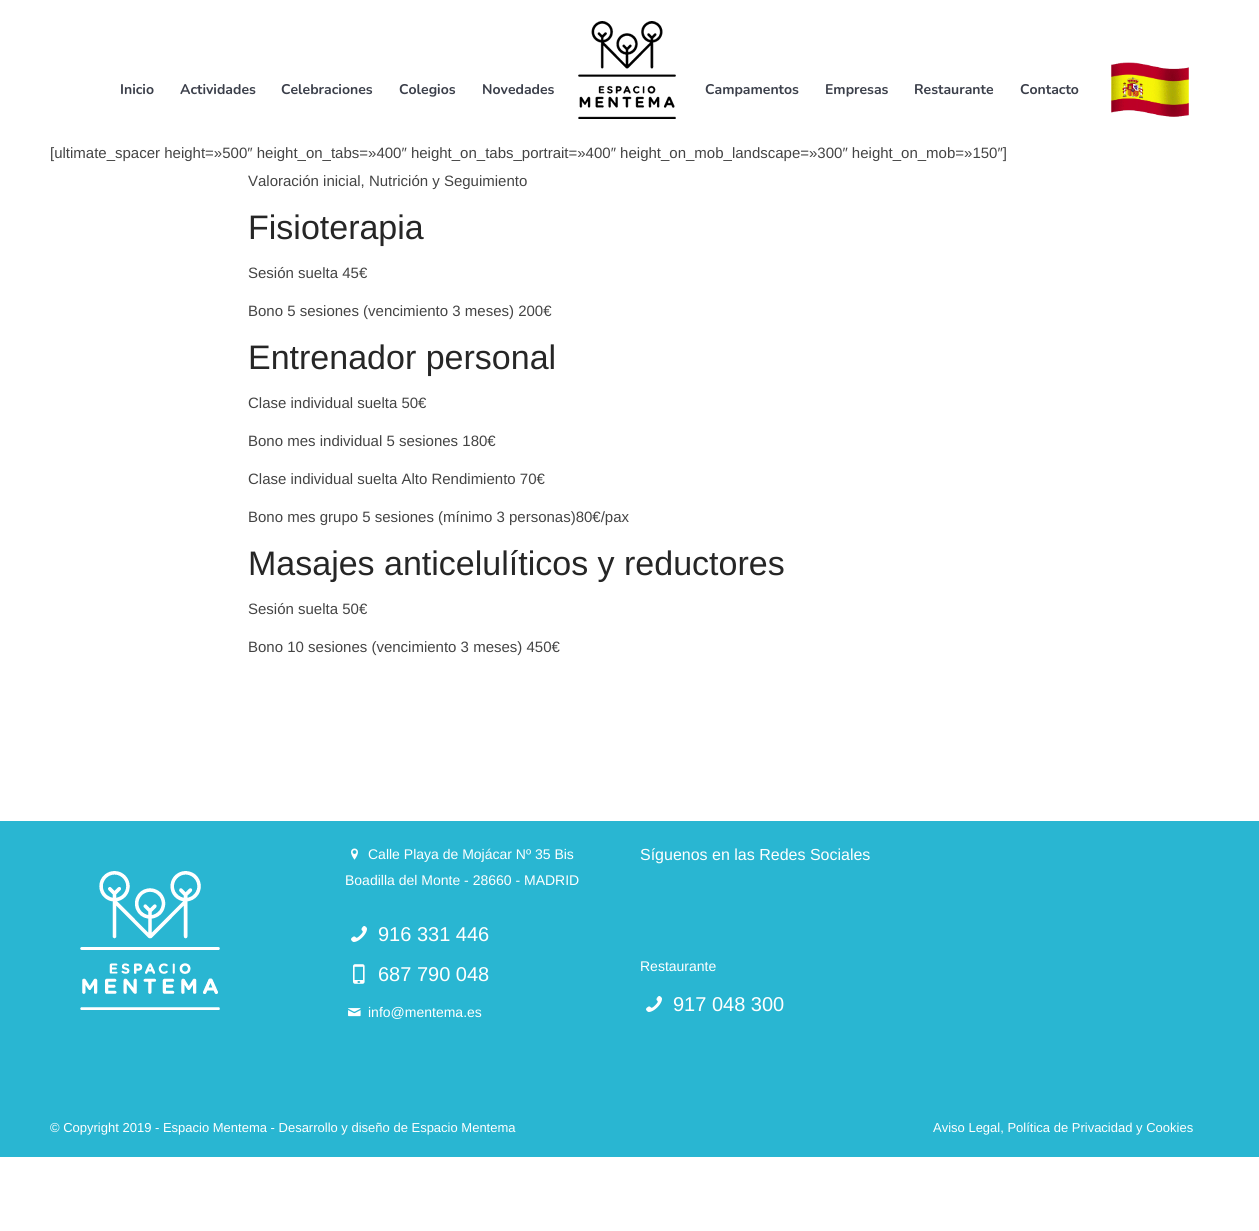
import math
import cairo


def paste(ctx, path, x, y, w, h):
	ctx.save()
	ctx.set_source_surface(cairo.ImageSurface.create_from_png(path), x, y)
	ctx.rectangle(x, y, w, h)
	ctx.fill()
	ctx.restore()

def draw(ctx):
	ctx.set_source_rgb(1, 1, 1)
	ctx.paint()
	ctx.select_font_face('Nunito', cairo.FONT_SLANT_NORMAL, cairo.FONT_WEIGHT_BOLD)
	ctx.set_font_size(14)
	ctx.set_source_rgb(0.231, 0.247, 0.29)
	for x, y, s in [
		(120, 94, 'Inicio'),
		(180, 94, 'Actividades'),
		(281, 94, 'Celebraciones'),
		(399, 94, 'Colegios'),
		(482, 94, 'Novedades'),
	]:
		ctx.move_to(x, y)
		ctx.show_text(s)
	paste(ctx, 'media/1.png', 578, 21, 98, 98)
	for x, y, s in [
		(705, 94, 'Campamentos'),
		(825, 94, 'Empresas'),
		(914, 94, 'Restaurante'),
		(1020, 94, 'Contacto'),
	]:
		ctx.move_to(x, y)
		ctx.show_text(s)
	paste(ctx, 'media/2.png', 1111, 62, 78, 55)
	ctx.select_font_face('Liberation Sans')
	ctx.set_font_size(15)
	ctx.set_source_rgb(0.267, 0.267, 0.267)
	ctx.move_to(50, 158)
	ctx.show_text('[ultimate_spacer height=»500″ height_on_tabs=»400″ height_on_tabs_portrait=»400″ height_on_mob_landscape=»300″ height_on_mob=»150″]')
	ctx.move_to(248, 186)
	ctx.show_text('Valoración inicial, Nutrición y Seguimiento')
	ctx.set_font_size(34)
	ctx.set_source_rgb(0.149, 0.149, 0.149)
	ctx.move_to(248, 239)
	ctx.show_text('Fisioterapia')
	ctx.set_font_size(15)
	ctx.set_source_rgb(0.267, 0.267, 0.267)
	ctx.move_to(248, 278)
	ctx.show_text('Sesión suelta 45€')
	ctx.move_to(248, 316)
	ctx.show_text('Bono 5 sesiones (vencimiento 3 meses) 200€')
	ctx.set_font_size(34)
	ctx.set_source_rgb(0.149, 0.149, 0.149)
	ctx.move_to(248, 369)
	ctx.show_text('Entrenador personal')
	ctx.set_font_size(15)
	ctx.set_source_rgb(0.267, 0.267, 0.267)
	for x, y, s in [
		(248, 408, 'Clase individual suelta 50€'),
		(248, 446, 'Bono mes individual 5 sesiones 180€'),
		(248, 484, 'Clase individual suelta Alto Rendimiento 70€'),
		(248, 522, 'Bono mes grupo 5 sesiones (mínimo 3 personas)80€/pax'),
	]:
		ctx.move_to(x, y)
		ctx.show_text(s)
	ctx.set_font_size(34)
	ctx.set_source_rgb(0.149, 0.149, 0.149)
	ctx.move_to(248, 575)
	ctx.show_text('Masajes anticelulíticos y reductores')
	ctx.set_font_size(15)
	ctx.set_source_rgb(0.267, 0.267, 0.267)
	ctx.move_to(248, 614)
	ctx.show_text('Sesión suelta 50€')
	ctx.move_to(248, 652)
	ctx.show_text('Bono 10 sesiones (vencimiento 3 meses) 450€')
	ctx.set_source_rgb(0.161, 0.714, 0.824)
	ctx.rectangle(0, 821, 1259, 336)
	ctx.fill()
	paste(ctx, 'media/3.png', 80, 871, 140, 139)
	paste(ctx, 'media/4.png', 351, 848, 7, 12)
	ctx.set_font_size(14)
	ctx.set_source_rgb(1, 1, 1)
	ctx.move_to(368, 859)
	ctx.show_text('Calle Playa de Mojácar Nº 35 Bis')
	ctx.move_to(345, 885)
	ctx.show_text('Boadilla del Monte - 28660 - MADRID')
	paste(ctx, 'media/5.png', 351, 926, 16, 16)
	ctx.set_font_size(20)
	ctx.move_to(378, 941)
	ctx.show_text('916 331 446')
	paste(ctx, 'media/6.png', 353, 964, 12, 20)
	ctx.move_to(378, 981)
	ctx.show_text('687 790 048')
	paste(ctx, 'media/7.png', 348, 1008, 13, 9)
	ctx.set_font_size(14)
	ctx.move_to(368, 1017)
	ctx.show_text('info@mentema.es')
	ctx.set_font_size(16)
	ctx.move_to(640, 860)
	ctx.show_text('Síguenos en las Redes Sociales')
	ctx.set_font_size(14)
	ctx.move_to(640, 971)
	ctx.show_text('Restaurante')
	paste(ctx, 'media/5.png', 646, 996, 16, 16)
	ctx.set_font_size(20)
	ctx.move_to(673, 1011)
	ctx.show_text('917 048 300')
	ctx.set_font_size(13)
	ctx.move_to(50, 1132)
	ctx.show_text('© Copyright 2019 - Espacio Mentema - Desarrollo y diseño de Espacio Mentema')
	ctx.move_to(933, 1132)
	ctx.show_text('Aviso Legal, Política de Privacidad y Cookies')


surface = cairo.ImageSurface(cairo.FORMAT_RGB24, 1259, 1231)
ctx = cairo.Context(surface)
options = cairo.FontOptions()
options.set_hint_metrics(cairo.HINT_METRICS_OFF)
options.set_hint_style(cairo.HINT_STYLE_NONE)
ctx.set_font_options(options)
ctx.set_miter_limit(4)
draw(ctx)
surface.write_to_png('image.png')
